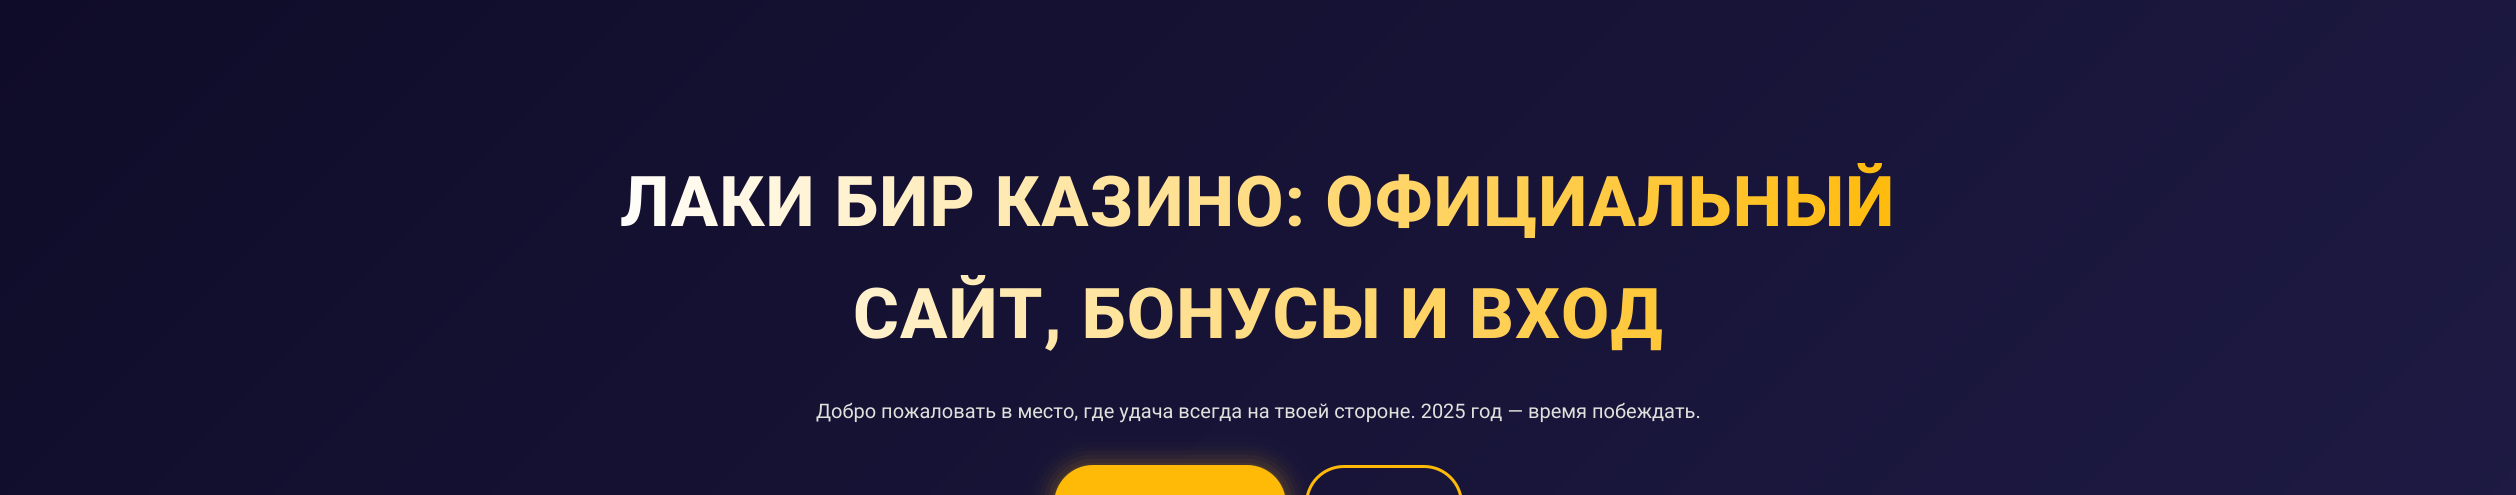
import math
import cairo


def write_spaced(ctx, x, y, s, letter, word):
	ctx.move_to(x, y)
	for ch in s:
		ctx.show_text(ch)
		ctx.rel_move_to(letter + word * (ch == ' '), 0)

def round_path(ctx, x, y, w, h, r):
	ctx.new_sub_path()
	for i, (u, v) in enumerate([(x + w - r, y + h - r), (x + r, y + h - r), (x + r, y + r), (x + w - r, y + r)]):
		ctx.arc(u, v, r, i * math.pi / 2, (i + 1) * math.pi / 2)
	ctx.close_path()

def blur_box(ctx, x, y, w, h, r, blur, alpha):
	ctx.push_group_with_content(cairo.CONTENT_ALPHA)
	ctx.set_operator(cairo.OPERATOR_SOURCE)
	for i in range(15, -16, -2):
		e = blur * i / 6
		if min(w, h) + 2 * e > 0:
			ctx.set_source_rgba(0, 0, 0, alpha * math.erfc((i - 1) / 8.5) / 2)
			round_path(ctx, x - e, y - e, w + 2 * e, h + 2 * e, max(0, min(r + e + blur * .6, min(w, h) / 2 + e)))
			ctx.fill()
	ctx.mask(ctx.pop_group())

def draw(ctx):
	ctx.set_source_rgb(1, 1, 1)
	ctx.paint()
	gradient = cairo.LinearGradient(-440, 440, 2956, 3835)
	gradient.add_color_stop_rgba(0, 0.059, 0.047, 0.161, 1)
	gradient.add_color_stop_rgba(1, 0.188, 0.169, 0.388, 1)
	ctx.set_source(gradient)
	ctx.rectangle(0, 0, 2516, 495)
	ctx.fill()
	ctx.select_font_face('Roboto ExtraBold')
	ctx.set_font_size(70)
	gradient = cairo.LinearGradient(596, 259, 1921, 259)
	gradient.add_color_stop_rgba(0, 1, 1, 1, 1)
	gradient.add_color_stop_rgba(1, 1, 0.729, 0.031, 1)
	ctx.set_source(gradient)
	write_spaced(ctx, 620, 226, 'ЛАКИ БИР КАЗИНО: ОФИЦИАЛЬНЫЙ', 1.25, 0)
	write_spaced(ctx, 853, 338, 'САЙТ, БОНУСЫ И ВХОД', 1.25, 0)
	ctx.select_font_face('Roboto')
	ctx.set_font_size(20)
	ctx.set_source_rgb(0.878, 0.882, 0.867)
	ctx.move_to(816, 418)
	ctx.show_text('Добро пожаловать в место, где удача всегда на твоей стороне. 2025 год — время побеждать.')
	ctx.set_source_rgb(1, 0.729, 0.031)
	blur_box(ctx, 1054, 465, 232, 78, 39, 12.5, 0.4)
	ctx.set_source_rgb(1, 0.729, 0.031)
	round_path(ctx, 1054, 465, 232, 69, 39)
	ctx.fill()
	round_path(ctx, 1306.5, 466.5, 155, 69, 37.5)
	ctx.set_line_width(3)
	ctx.stroke()


surface = cairo.ImageSurface(cairo.FORMAT_RGB24, 2516, 495)
ctx = cairo.Context(surface)
options = cairo.FontOptions()
options.set_hint_metrics(cairo.HINT_METRICS_OFF)
options.set_hint_style(cairo.HINT_STYLE_NONE)
ctx.set_font_options(options)
ctx.set_miter_limit(4)
draw(ctx)
surface.write_to_png('image.png')
